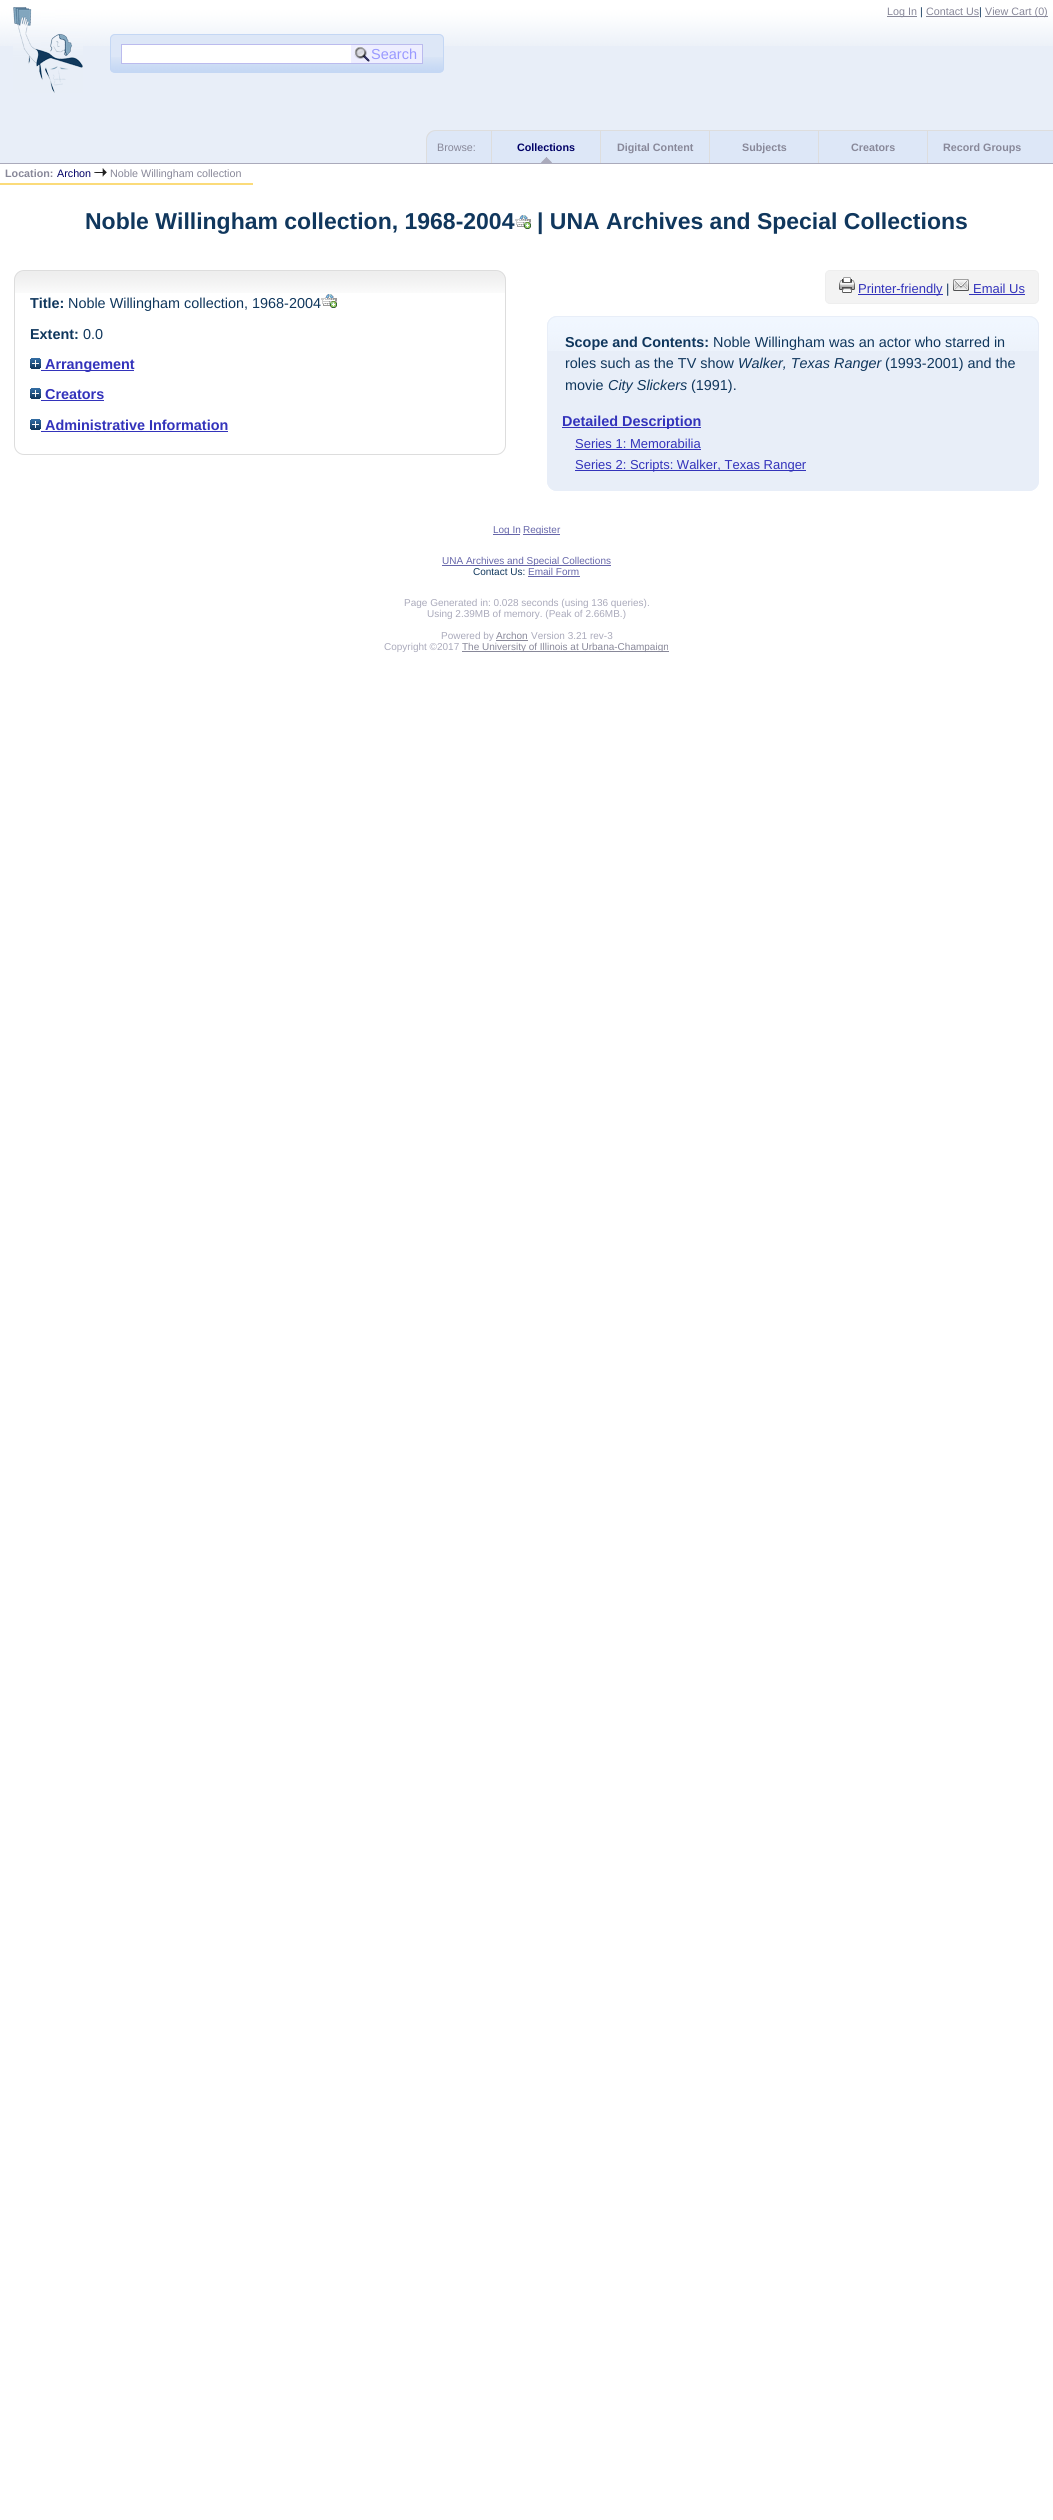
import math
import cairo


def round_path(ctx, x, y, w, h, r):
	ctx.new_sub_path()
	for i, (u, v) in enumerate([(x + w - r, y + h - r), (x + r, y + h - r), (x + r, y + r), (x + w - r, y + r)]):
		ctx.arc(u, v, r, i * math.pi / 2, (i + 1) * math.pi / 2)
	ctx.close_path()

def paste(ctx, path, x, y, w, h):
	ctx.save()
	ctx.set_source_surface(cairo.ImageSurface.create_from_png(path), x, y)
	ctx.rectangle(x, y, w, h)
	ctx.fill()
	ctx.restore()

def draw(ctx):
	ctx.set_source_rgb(1, 1, 1)
	ctx.paint()
	ctx.set_source_rgb(0.91, 0.933, 0.969)
	ctx.rectangle(0, 46, 1053, 117)
	ctx.fill()
	paste(ctx, 'media/1.png', 0, 7, 1053, 39)
	ctx.set_source_rgb(0.667, 0.667, 0.733)
	ctx.rectangle(0, 163, 1053, 1)
	ctx.fill()
	ctx.set_source_rgb(0.533, 0.533, 0.6)
	ctx.rectangle(887, 16, 30, 1)
	ctx.fill()
	ctx.select_font_face('Liberation Sans')
	ctx.set_font_size(10.75)
	ctx.move_to(887, 15)
	ctx.show_text('Log In')
	ctx.set_source_rgb(0.063, 0.216, 0.365)
	ctx.move_to(920, 15)
	ctx.show_text('|')
	ctx.set_source_rgb(0.533, 0.533, 0.6)
	ctx.move_to(926, 15)
	ctx.show_text('Contact Us')
	ctx.rectangle(926, 16, 53, 1)
	ctx.fill()
	ctx.set_source_rgb(0.063, 0.216, 0.365)
	ctx.move_to(979, 15)
	ctx.show_text('|')
	ctx.set_source_rgb(0.533, 0.533, 0.6)
	ctx.rectangle(985, 16, 53, 1)
	ctx.fill()
	ctx.move_to(985, 15)
	ctx.show_text('View Cart (0')
	ctx.rectangle(1038, 16, 10, 1)
	ctx.fill()
	ctx.move_to(1044, 15)
	ctx.show_text(')')
	paste(ctx, 'media/2.png', 13, 7, 70, 86)
	ctx.set_source_rgb(0.867, 0.906, 0.965)
	round_path(ctx, 110, 34, 334, 39, 5)
	ctx.fill()
	paste(ctx, 'media/3.png', 110, 57, 334, 15)
	round_path(ctx, 110.5, 34.5, 333, 38, 4.5)
	ctx.set_source_rgb(0.769, 0.843, 0.957)
	ctx.set_line_width(1)
	ctx.stroke()
	ctx.set_source_rgb(1, 1, 1)
	ctx.rectangle(122, 45, 229, 18)
	ctx.fill()
	ctx.rectangle(121.5, 44.5, 232, 19)
	ctx.set_source_rgb(0.733, 0.733, 0.933)
	ctx.stroke()
	ctx.set_source_rgb(0.933, 0.933, 1)
	ctx.rectangle(351, 45, 71, 18)
	ctx.fill()
	paste(ctx, 'media/4.png', 354, 46, 16, 16)
	ctx.set_source_rgb(0.733, 0.733, 0.933)
	ctx.rectangle(351, 44, 72, 1)
	ctx.rectangle(422, 44, 1, 20)
	ctx.rectangle(351, 63, 72, 1)
	ctx.fill()
	ctx.set_font_size(14.5)
	ctx.set_source_rgb(0.6, 0.6, 1)
	ctx.move_to(371, 59)
	ctx.show_text('Search')
	ctx.set_source_rgb(0.867, 0.906, 0.965)
	ctx.new_path()
	ctx.move_to(436, 130)
	ctx.line_to(1053, 130)
	ctx.line_to(1053, 163)
	ctx.line_to(426, 163)
	ctx.line_to(426, 140)
	ctx.curve_to(426, 134.5, 430.5, 130, 436, 130)
	ctx.close_path()
	ctx.fill()
	ctx.set_source_rgb(0.867, 0.867, 0.867)
	ctx.set_fill_rule(cairo.FILL_RULE_EVEN_ODD)
	ctx.new_path()
	ctx.move_to(436, 130)
	ctx.line_to(1053, 130)
	ctx.line_to(1053, 163)
	ctx.line_to(426, 163)
	ctx.line_to(426, 140)
	ctx.curve_to(426, 134, 430, 130, 436, 130)
	ctx.close_path()
	ctx.move_to(436, 131)
	ctx.line_to(1053, 131)
	ctx.line_to(1053, 163)
	ctx.line_to(427, 163)
	ctx.line_to(427, 140)
	ctx.curve_to(427, 135, 431, 131, 436, 131)
	ctx.close_path()
	ctx.fill()
	ctx.set_font_size(10.75)
	ctx.set_source_rgb(0.533, 0.533, 0.6)
	ctx.move_to(437, 151)
	ctx.show_text('Browse:')
	paste(ctx, 'media/5.png', 541, 157, 11, 6)
	ctx.set_source_rgb(0.867, 0.867, 0.867)
	ctx.rectangle(491, 131, 1, 32)
	ctx.fill()
	ctx.select_font_face('Liberation Sans', cairo.FONT_SLANT_NORMAL, cairo.FONT_WEIGHT_BOLD)
	ctx.set_source_rgb(0, 0, 0.4)
	ctx.move_to(517, 151)
	ctx.show_text('Collections')
	ctx.set_source_rgb(0.867, 0.867, 0.867)
	ctx.rectangle(600, 131, 1, 32)
	ctx.fill()
	ctx.set_source_rgb(0.533, 0.533, 0.6)
	ctx.move_to(617, 151)
	ctx.show_text('Digital Content')
	ctx.set_source_rgb(0.867, 0.867, 0.867)
	ctx.rectangle(709, 131, 1, 32)
	ctx.fill()
	ctx.set_source_rgb(0.533, 0.533, 0.6)
	ctx.move_to(742, 151)
	ctx.show_text('Subjects')
	ctx.set_source_rgb(0.867, 0.867, 0.867)
	ctx.rectangle(818, 131, 1, 32)
	ctx.fill()
	ctx.set_source_rgb(0.533, 0.533, 0.6)
	ctx.move_to(851, 151)
	ctx.show_text('Creators')
	ctx.set_source_rgb(0.867, 0.867, 0.867)
	ctx.rectangle(927, 131, 1, 32)
	ctx.fill()
	ctx.set_source_rgb(0.533, 0.533, 0.6)
	ctx.move_to(943, 151)
	ctx.show_text('Record Groups')
	ctx.set_source_rgb(0.984, 0.859, 0.478)
	ctx.rectangle(0, 183, 253, 2)
	ctx.fill()
	ctx.set_source_rgb(0.533, 0.533, 0.6)
	ctx.move_to(5, 177)
	ctx.show_text('Location:')
	ctx.select_font_face('Liberation Sans')
	ctx.set_source_rgb(0, 0, 0.4)
	ctx.move_to(57, 177)
	ctx.show_text('Archon')
	paste(ctx, 'media/6.png', 94, 168, 13, 9)
	ctx.set_source_rgb(0.533, 0.533, 0.6)
	ctx.move_to(110, 177)
	ctx.show_text('Noble Willingham collection')
	ctx.select_font_face('Liberation Sans', cairo.FONT_SLANT_NORMAL, cairo.FONT_WEIGHT_BOLD)
	ctx.set_font_size(23)
	ctx.set_source_rgb(0.063, 0.216, 0.365)
	ctx.move_to(85, 229)
	ctx.show_text('Noble Willingham collection, 1968-2004')
	paste(ctx, 'media/7.png', 515, 215, 16, 14)
	ctx.move_to(537, 229)
	ctx.show_text('| UNA Archives and Special Collections')
	ctx.set_source_rgb(0.953, 0.953, 0.953)
	round_path(ctx, 825.5, 270.5, 213, 33, 4.5)
	ctx.fill_preserve()
	ctx.set_source_rgb(0.933, 0.933, 0.933)
	ctx.stroke()
	paste(ctx, 'media/8.png', 839, 277, 16, 16)
	ctx.set_source_rgb(0.2, 0.2, 0.733)
	ctx.rectangle(858, 294, 85, 1)
	ctx.fill()
	ctx.select_font_face('Liberation Sans')
	ctx.set_font_size(13)
	ctx.move_to(858, 293)
	ctx.show_text('Printer-friendly')
	ctx.set_source_rgb(0.063, 0.216, 0.365)
	ctx.move_to(946, 293)
	ctx.show_text('|')
	paste(ctx, 'media/9.png', 953, 279, 16, 12)
	ctx.set_source_rgb(0.2, 0.2, 0.733)
	ctx.move_to(973, 293)
	ctx.show_text('Email Us')
	ctx.rectangle(969, 294, 56, 1)
	ctx.fill()
	paste(ctx, 'media/10.png', 14, 271, 492, 22)
	round_path(ctx, 14.5, 270.5, 491, 184, 9.5)
	ctx.set_source_rgb(0.867, 0.867, 0.867)
	ctx.stroke()
	ctx.select_font_face('Liberation Sans', cairo.FONT_SLANT_NORMAL, cairo.FONT_WEIGHT_BOLD)
	ctx.set_font_size(14.4)
	ctx.set_source_rgb(0.063, 0.216, 0.365)
	ctx.move_to(30, 308)
	ctx.show_text('Title:')
	ctx.select_font_face('Liberation Sans')
	ctx.move_to(68, 308)
	ctx.show_text('Noble Willingham collection, 1968-2004')
	paste(ctx, 'media/7.png', 321, 294, 16, 14)
	ctx.select_font_face('Liberation Sans', cairo.FONT_SLANT_NORMAL, cairo.FONT_WEIGHT_BOLD)
	ctx.move_to(30, 339)
	ctx.show_text('Extent:')
	ctx.select_font_face('Liberation Sans')
	ctx.move_to(83, 339)
	ctx.show_text('0.0')
	paste(ctx, 'media/11.png', 30, 358, 11, 11)
	ctx.set_source_rgb(0.2, 0.2, 0.733)
	ctx.rectangle(41, 370, 93, 1)
	ctx.fill()
	ctx.select_font_face('Liberation Sans', cairo.FONT_SLANT_NORMAL, cairo.FONT_WEIGHT_BOLD)
	ctx.move_to(45, 369)
	ctx.show_text('Arrangement')
	paste(ctx, 'media/11.png', 30, 388, 11, 11)
	ctx.move_to(45, 399)
	ctx.show_text('Creators')
	ctx.rectangle(41, 400, 63, 1)
	ctx.fill()
	paste(ctx, 'media/11.png', 30, 419, 11, 11)
	ctx.move_to(45, 430)
	ctx.show_text('Administrative Information')
	ctx.rectangle(41, 431, 187, 1)
	ctx.fill()
	ctx.set_source_rgb(0.91, 0.933, 0.969)
	round_path(ctx, 547, 316, 492, 175, 10)
	ctx.fill()
	paste(ctx, 'media/12.png', 547, 317, 492, 34)
	round_path(ctx, 547.5, 316.5, 491, 174, 9.5)
	ctx.stroke()
	ctx.set_source_rgb(0.063, 0.216, 0.365)
	ctx.move_to(565, 347)
	ctx.show_text('Scope and Contents:')
	ctx.select_font_face('Liberation Sans')
	ctx.move_to(713, 347)
	ctx.show_text('Noble Willingham was an actor who starred in')
	ctx.move_to(565, 368)
	ctx.show_text('roles such as the TV show')
	ctx.select_font_face('Liberation Sans', cairo.FONT_SLANT_ITALIC)
	ctx.move_to(738, 368)
	ctx.show_text('Walker, Texas Ranger')
	ctx.select_font_face('Liberation Sans')
	ctx.move_to(885, 368)
	ctx.show_text('(1993-2001) and the')
	ctx.move_to(565, 390)
	ctx.show_text('movie')
	ctx.select_font_face('Liberation Sans', cairo.FONT_SLANT_ITALIC)
	ctx.move_to(608, 390)
	ctx.show_text('City Slickers')
	ctx.select_font_face('Liberation Sans')
	ctx.move_to(691, 390)
	ctx.show_text('(1991).')
	ctx.set_source_rgb(0.2, 0.2, 0.733)
	ctx.rectangle(562, 427, 139, 1)
	ctx.fill()
	ctx.select_font_face('Liberation Sans', cairo.FONT_SLANT_NORMAL, cairo.FONT_WEIGHT_BOLD)
	ctx.move_to(562, 426)
	ctx.show_text('Detailed Description')
	ctx.select_font_face('Liberation Sans')
	ctx.set_font_size(13)
	ctx.move_to(575, 448)
	ctx.show_text('Series 1: Memorabilia')
	ctx.rectangle(575, 449, 126, 1)
	ctx.fill()
	ctx.rectangle(575, 470, 231, 1)
	ctx.fill()
	ctx.move_to(575, 469)
	ctx.show_text('Series 2: Scripts: Walker, Texas Ranger')
	ctx.set_source_rgb(0.4, 0.4, 0.667)
	ctx.rectangle(493, 534, 27, 1)
	ctx.fill()
	ctx.set_font_size(10)
	ctx.move_to(493, 533)
	ctx.show_text('Log In')
	ctx.rectangle(523, 534, 37, 1)
	ctx.fill()
	ctx.move_to(523, 533)
	ctx.show_text('Register')
	ctx.rectangle(442, 565, 169, 1)
	ctx.fill()
	ctx.move_to(442, 564)
	ctx.show_text('UNA Archives and Special Collections')
	ctx.set_source_rgb(0.063, 0.216, 0.365)
	ctx.move_to(473, 575)
	ctx.show_text('Contact Us:')
	ctx.set_source_rgb(0.4, 0.4, 0.667)
	ctx.move_to(528, 575)
	ctx.show_text('Email Form')
	ctx.rectangle(528, 576, 52, 1)
	ctx.fill()
	ctx.set_source_rgb(0.667, 0.667, 0.733)
	for x, y, s in [
		(404, 606, 'Page Generated in: 0.028 seconds (using 136 queries).'),
		(427, 617, 'Using 2.39MB of memory. (Peak of 2.66MB.)'),
		(441, 639, 'Powered by'),
	]:
		ctx.move_to(x, y)
		ctx.show_text(s)
	ctx.set_source_rgb(0.533, 0.533, 0.6)
	ctx.move_to(496, 639)
	ctx.show_text('Archon')
	ctx.rectangle(496, 640, 32, 1)
	ctx.fill()
	ctx.set_source_rgb(0.667, 0.667, 0.733)
	ctx.move_to(531, 639)
	ctx.show_text('Version 3.21 rev-3')
	ctx.move_to(384, 650)
	ctx.show_text('Copyright ©2017')
	ctx.set_source_rgb(0.533, 0.533, 0.6)
	ctx.rectangle(462, 651, 207, 1)
	ctx.fill()
	ctx.move_to(462, 650)
	ctx.show_text('The University of Illinois at Urbana-Champaign')


surface = cairo.ImageSurface(cairo.FORMAT_RGB24, 1053, 2520)
ctx = cairo.Context(surface)
options = cairo.FontOptions()
options.set_hint_metrics(cairo.HINT_METRICS_OFF)
options.set_hint_style(cairo.HINT_STYLE_NONE)
ctx.set_font_options(options)
ctx.set_miter_limit(4)
draw(ctx)
surface.write_to_png('image.png')
